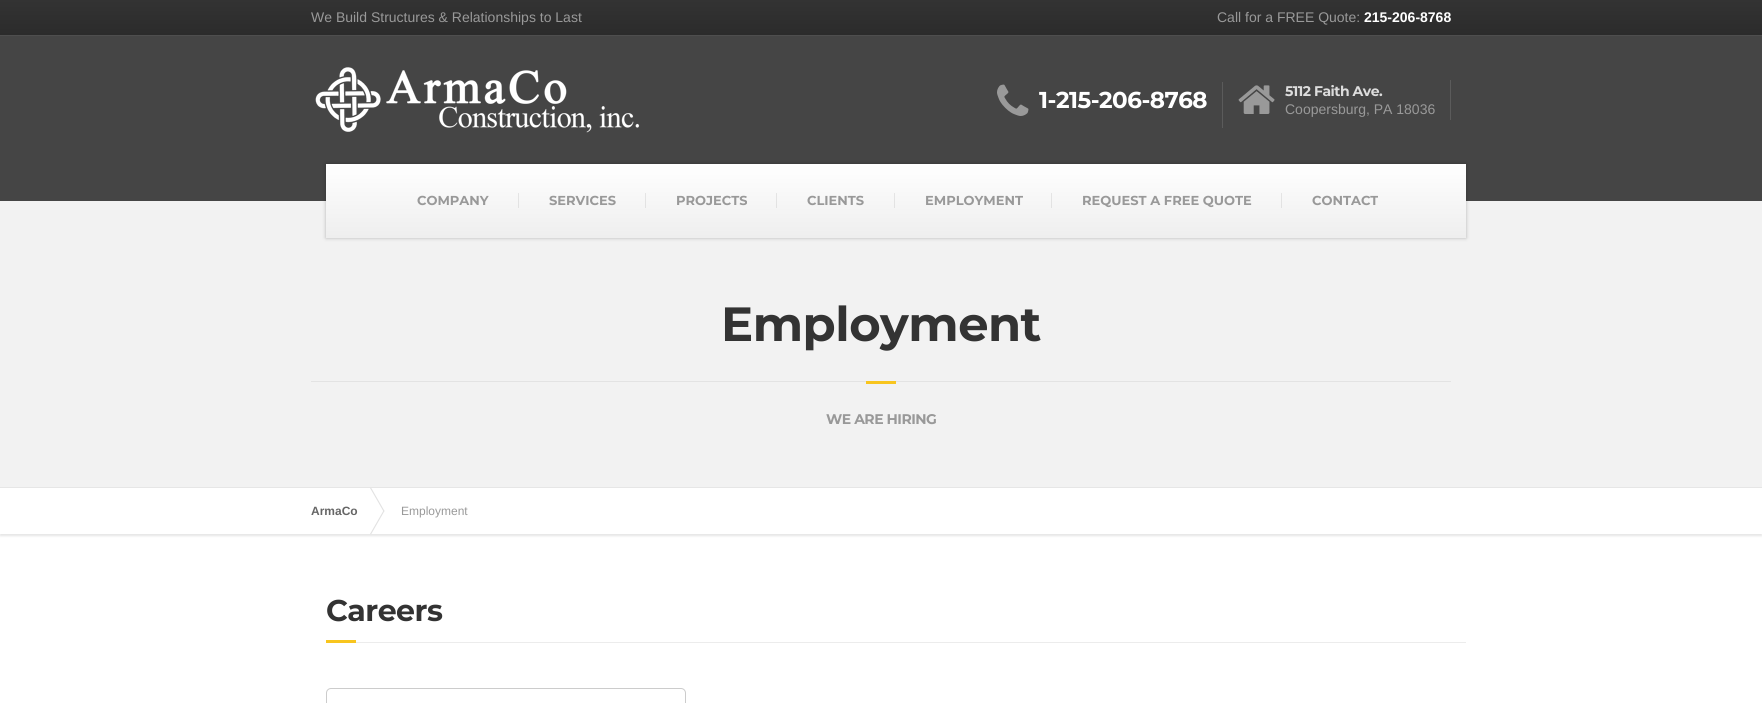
import math
import cairo


def write_spaced(ctx, x, y, s, letter, word):
	ctx.move_to(x, y)
	for ch in s:
		ctx.show_text(ch)
		ctx.rel_move_to(letter + word * (ch == ' '), 0)

def round_path(ctx, x, y, w, h, r):
	ctx.new_sub_path()
	for i, (u, v) in enumerate([(x + w - r, y + h - r), (x + r, y + h - r), (x + r, y + r), (x + w - r, y + r)]):
		ctx.arc(u, v, r, i * math.pi / 2, (i + 1) * math.pi / 2)
	ctx.close_path()

def blur_box(ctx, x, y, w, h, r, blur, alpha):
	ctx.push_group_with_content(cairo.CONTENT_ALPHA)
	ctx.set_operator(cairo.OPERATOR_SOURCE)
	for i in range(15, -16, -2):
		e = blur * i / 6
		if min(w, h) + 2 * e > 0:
			ctx.set_source_rgba(0, 0, 0, alpha * math.erfc((i - 1) / 8.5) / 2)
			round_path(ctx, x - e, y - e, w + 2 * e, h + 2 * e, max(0, min(r + e + blur * .6, min(w, h) / 2 + e)))
			ctx.fill()
	ctx.mask(ctx.pop_group())

def paste(ctx, path, x, y, w, h):
	ctx.save()
	ctx.set_source_surface(cairo.ImageSurface.create_from_png(path), x, y)
	ctx.rectangle(x, y, w, h)
	ctx.fill()
	ctx.restore()

def draw(ctx):
	ctx.set_source_rgb(1, 1, 1)
	ctx.paint()
	gradient = cairo.LinearGradient(881, 0, 881, 35)
	gradient.add_color_stop_rgba(0, 0.2, 0.2, 0.2, 1)
	gradient.add_color_stop_rgba(1, 0.169, 0.169, 0.169, 1)
	ctx.set_source(gradient)
	ctx.rectangle(0, 0, 1762, 35)
	ctx.fill()
	ctx.set_source_rgb(0.306, 0.306, 0.306)
	ctx.rectangle(0, 35, 1762, 1)
	ctx.fill()
	ctx.select_font_face('Liberation Sans')
	ctx.set_font_size(14)
	ctx.set_source_rgb(0.6, 0.6, 0.6)
	ctx.move_to(311, 22)
	ctx.show_text('We Build Structures & Relationships to Last')
	ctx.move_to(1217, 22)
	ctx.show_text('Call for a FREE Quote:')
	ctx.select_font_face('Liberation Sans', cairo.FONT_SLANT_NORMAL, cairo.FONT_WEIGHT_BOLD)
	ctx.set_source_rgb(1, 1, 1)
	ctx.move_to(1364, 22)
	ctx.show_text('215-206-8768')
	ctx.set_source_rgb(0.271, 0.271, 0.271)
	ctx.rectangle(0, 36, 1762, 165)
	ctx.fill()
	paste(ctx, 'media/1.png', 315, 67, 325, 66)
	ctx.set_source_rgb(0.357, 0.357, 0.357)
	ctx.rectangle(1222, 82, 1, 46)
	ctx.fill()
	paste(ctx, 'media/2.png', 997, 84, 32, 32)
	ctx.select_font_face('Montserrat', cairo.FONT_SLANT_NORMAL, cairo.FONT_WEIGHT_BOLD)
	ctx.set_font_size(23)
	ctx.set_source_rgb(1, 1, 1)
	write_spaced(ctx, 1039, 108, '1-215-206-8768', -0.5, 0)
	ctx.set_source_rgb(0.357, 0.357, 0.357)
	ctx.rectangle(1450, 80, 1, 40)
	ctx.fill()
	paste(ctx, 'media/3.png', 1238, 85, 37, 29)
	ctx.set_font_size(14)
	ctx.set_source_rgb(0.867, 0.867, 0.867)
	write_spaced(ctx, 1285, 96, '5112 Faith Ave.', -0.5, 0)
	ctx.select_font_face('Liberation Sans')
	ctx.set_source_rgb(0.6, 0.6, 0.6)
	ctx.move_to(1285, 114)
	ctx.show_text('Coopersburg, PA 18036')
	ctx.set_source_rgb(0.949, 0.949, 0.949)
	ctx.rectangle(0, 201, 1762, 286)
	ctx.fill()
	ctx.set_source_rgb(0, 0, 0)
	blur_box(ctx, 326, 164, 1140, 74, 0, 2, 0.25)
	gradient = cairo.LinearGradient(896, 164, 896, 238)
	gradient.add_color_stop_rgba(0, 1, 1, 1, 1)
	gradient.add_color_stop_rgba(1, 0.933, 0.933, 0.933, 1)
	ctx.set_source(gradient)
	ctx.rectangle(326, 164, 1140, 74)
	ctx.fill()
	gradient = cairo.LinearGradient(896, 164, 896, 238)
	gradient.add_color_stop_rgba(0, 0.922, 0.922, 0.922, 1)
	gradient.add_color_stop_rgba(1, 0.859, 0.859, 0.859, 1)
	ctx.set_source(gradient)
	ctx.rectangle(1281, 193, 1, 15)
	ctx.fill()
	ctx.rectangle(1051, 193, 1, 15)
	ctx.fill()
	ctx.rectangle(894, 193, 1, 15)
	ctx.fill()
	ctx.rectangle(776, 193, 1, 15)
	ctx.fill()
	ctx.rectangle(645, 193, 1, 15)
	ctx.fill()
	ctx.rectangle(518, 193, 1, 15)
	ctx.fill()
	ctx.select_font_face('Montserrat', cairo.FONT_SLANT_NORMAL, cairo.FONT_WEIGHT_BOLD)
	ctx.set_font_size(13)
	ctx.set_source_rgb(0.6, 0.6, 0.6)
	for x, y, s in [
		(417, 205, 'COMPANY'),
		(549, 205, 'SERVICES'),
		(676, 205, 'PROJECTS'),
		(807, 205, 'CLIENTS'),
		(925, 205, 'EMPLOYMENT'),
		(1082, 205, 'REQUEST A FREE QUOTE'),
		(1312, 205, 'CONTACT'),
	]:
		ctx.move_to(x, y)
		ctx.show_text(s)
	ctx.set_source_rgb(0.902, 0.902, 0.902)
	ctx.rectangle(0, 487, 1762, 1)
	ctx.fill()
	ctx.set_font_size(48)
	ctx.set_source_rgb(0.2, 0.2, 0.2)
	write_spaced(ctx, 721, 341, 'Employment', -0.5, 0)
	ctx.set_source_rgb(0.89, 0.89, 0.89)
	ctx.rectangle(311, 381, 1140, 1)
	ctx.fill()
	ctx.set_source_rgb(0.969, 0.773, 0.118)
	ctx.rectangle(866, 381, 30, 3)
	ctx.fill()
	ctx.set_font_size(14)
	ctx.set_source_rgb(0.6, 0.6, 0.6)
	write_spaced(ctx, 826, 424, 'WE ARE HIRING', -0.5, 0)
	ctx.save()
	ctx.rectangle(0, 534, 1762, 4)
	ctx.clip()
	ctx.set_source_rgb(0.902, 0.902, 0.902)
	blur_box(ctx, 0, 490, 1762, 46, 0, 1, 1)
	ctx.restore()
	ctx.select_font_face('Liberation Sans', cairo.FONT_SLANT_NORMAL, cairo.FONT_WEIGHT_BOLD)
	ctx.set_font_size(12)
	ctx.set_source_rgb(0.4, 0.4, 0.4)
	ctx.move_to(311, 515)
	ctx.show_text('ArmaCo')
	ctx.set_source_rgb(0.886, 0.886, 0.886)
	ctx.new_path()
	ctx.move_to(370, 488)
	ctx.line_to(371, 487.5)
	ctx.line_to(384.5, 511)
	ctx.line_to(383.5, 511.5)
	ctx.close_path()
	ctx.fill()
	ctx.new_path()
	ctx.move_to(383.5, 510.5)
	ctx.line_to(384.5, 511)
	ctx.line_to(371, 534.5)
	ctx.line_to(370, 534)
	ctx.close_path()
	ctx.fill()
	ctx.select_font_face('Liberation Sans')
	ctx.set_source_rgb(0.6, 0.6, 0.6)
	ctx.move_to(401, 515)
	ctx.show_text('Employment')
	ctx.set_source_rgb(0.922, 0.922, 0.922)
	ctx.rectangle(356, 642, 1110, 1)
	ctx.fill()
	ctx.select_font_face('Montserrat', cairo.FONT_SLANT_NORMAL, cairo.FONT_WEIGHT_BOLD)
	ctx.set_font_size(30)
	ctx.set_source_rgb(0.2, 0.2, 0.2)
	write_spaced(ctx, 326, 621, 'Careers', -0.5, 0)
	ctx.set_source_rgb(0.969, 0.773, 0.118)
	ctx.rectangle(326, 640, 30, 3)
	ctx.fill()
	round_path(ctx, 326.5, 688.5, 359, 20, 4.5)
	ctx.set_source_rgb(0.8, 0.8, 0.8)
	ctx.set_line_width(1)
	ctx.stroke()


surface = cairo.ImageSurface(cairo.FORMAT_RGB24, 1762, 703)
ctx = cairo.Context(surface)
options = cairo.FontOptions()
options.set_hint_metrics(cairo.HINT_METRICS_OFF)
options.set_hint_style(cairo.HINT_STYLE_NONE)
ctx.set_font_options(options)
ctx.set_miter_limit(4)
draw(ctx)
surface.write_to_png('image.png')
